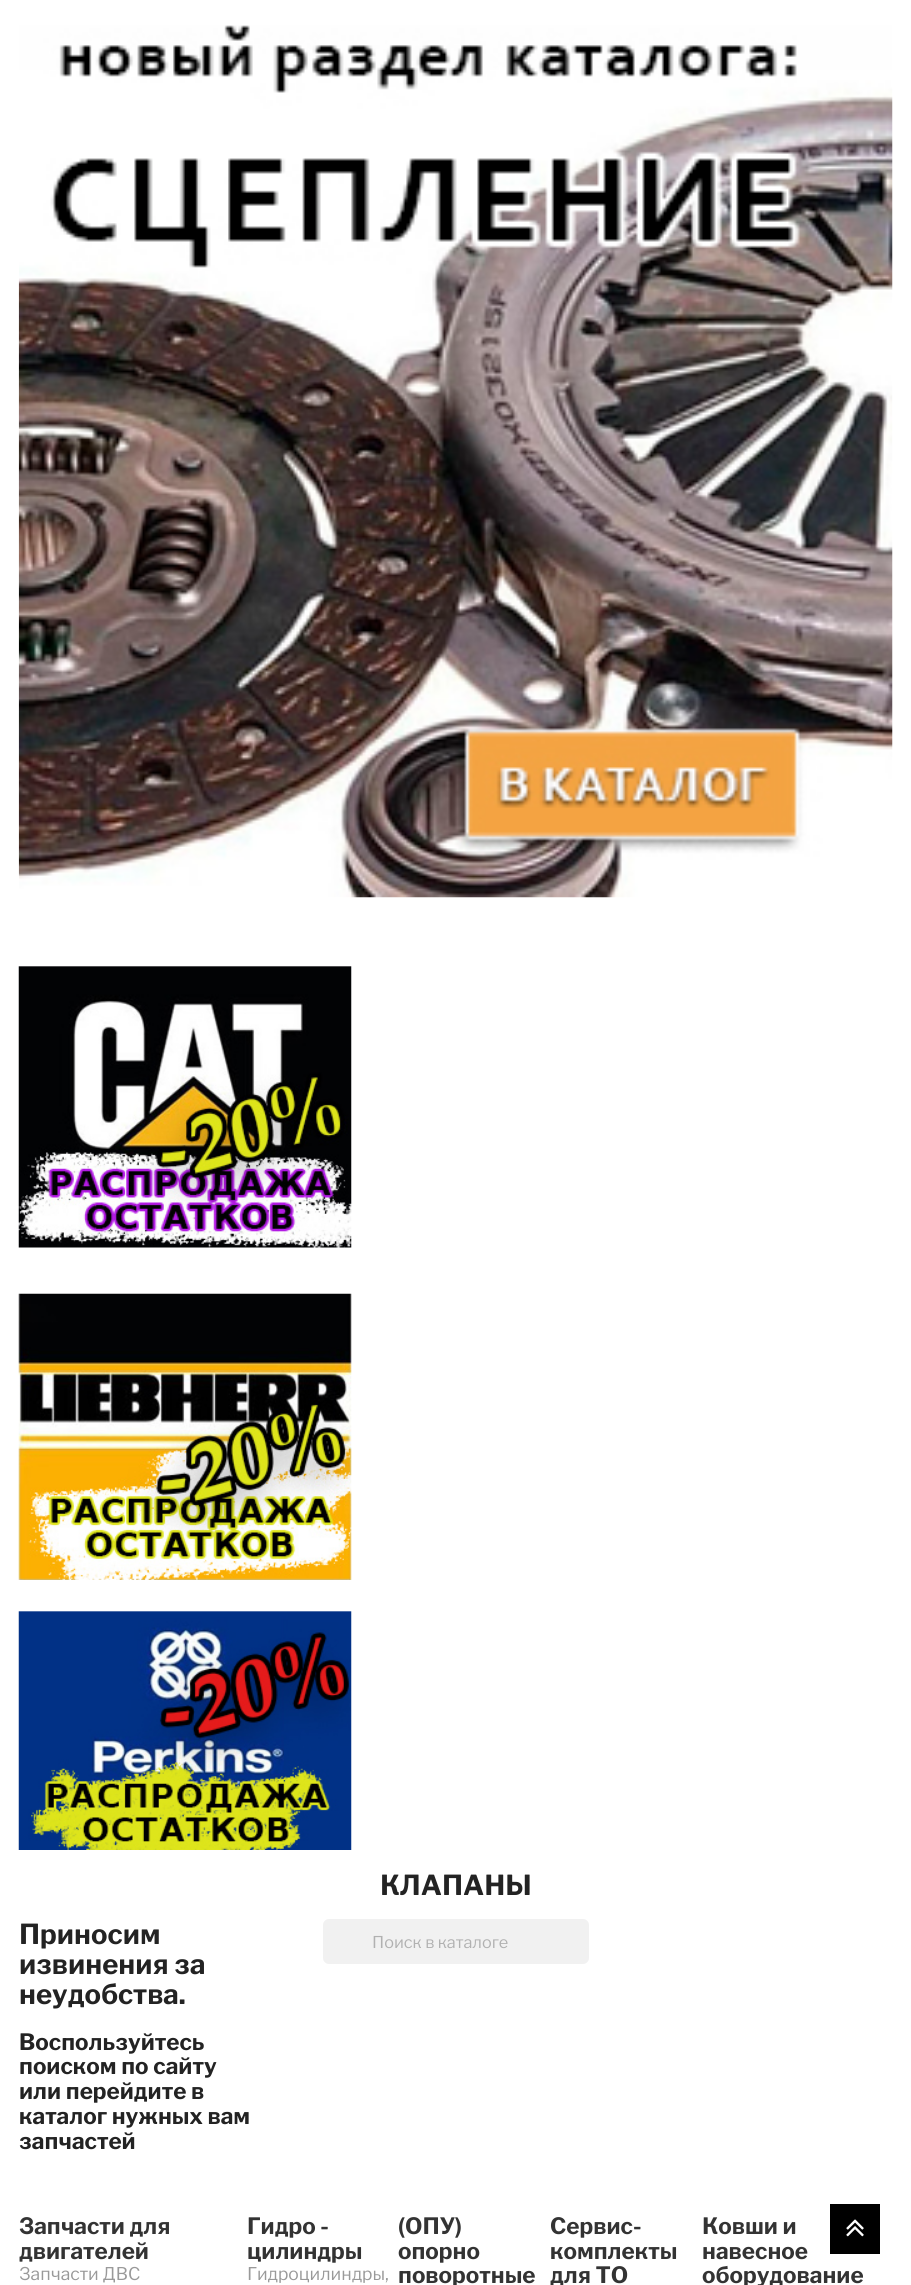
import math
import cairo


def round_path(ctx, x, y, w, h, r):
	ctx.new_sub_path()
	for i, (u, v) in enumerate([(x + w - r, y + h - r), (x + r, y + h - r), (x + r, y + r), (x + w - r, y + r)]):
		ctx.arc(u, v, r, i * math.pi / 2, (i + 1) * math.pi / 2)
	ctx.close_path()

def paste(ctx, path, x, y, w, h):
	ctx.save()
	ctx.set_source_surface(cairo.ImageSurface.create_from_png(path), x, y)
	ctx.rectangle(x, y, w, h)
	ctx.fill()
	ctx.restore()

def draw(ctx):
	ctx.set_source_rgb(1, 1, 1)
	ctx.paint()
	paste(ctx, 'media/1.png', 18, 25, 875, 873)
	paste(ctx, 'media/2.png', 18, 966, 334, 282)
	paste(ctx, 'media/3.png', 18, 1293, 334, 287)
	paste(ctx, 'media/4.png', 18, 1611, 334, 239)
	ctx.select_font_face('Libre Franklin', cairo.FONT_SLANT_NORMAL, cairo.FONT_WEIGHT_BOLD)
	ctx.set_font_size(27.5)
	ctx.set_source_rgb(0.137, 0.137, 0.137)
	for x, y, s in [
		(380, 1895, 'КЛАПАНЫ'),
		(19, 1944, 'Приносим'),
		(19, 1974, 'извинения за'),
		(19, 2004, 'неудобства.'),
	]:
		ctx.move_to(x, y)
		ctx.show_text(s)
	ctx.set_font_size(22.5)
	for x, y, s in [
		(19, 2050, 'Воспользуйтесь'),
		(19, 2074, 'поиском по сайту'),
		(19, 2099, 'или перейдите в'),
		(19, 2124, 'каталог нужных вам'),
		(19, 2149, 'запчастей'),
	]:
		ctx.move_to(x, y)
		ctx.show_text(s)
	ctx.set_source_rgb(0.945, 0.945, 0.945)
	round_path(ctx, 323, 1919, 266, 45, 6)
	ctx.fill()
	ctx.select_font_face('Libre Franklin')
	ctx.set_font_size(16.25)
	ctx.set_source_rgb(0.694, 0.694, 0.694)
	ctx.move_to(372, 1948)
	ctx.show_text('Поиск в каталоге')
	ctx.select_font_face('Libre Franklin', cairo.FONT_SLANT_NORMAL, cairo.FONT_WEIGHT_BOLD)
	ctx.set_font_size(22.5)
	ctx.set_source_rgb(0.2, 0.2, 0.2)
	ctx.move_to(19, 2234)
	ctx.show_text('Запчасти для')
	ctx.move_to(19, 2259)
	ctx.show_text('двигателей')
	ctx.select_font_face('Libre Franklin')
	ctx.set_font_size(17.5)
	ctx.set_source_rgb(0.6, 0.6, 0.6)
	ctx.move_to(19, 2280)
	ctx.show_text('Запчасти ДВС')
	ctx.select_font_face('Libre Franklin', cairo.FONT_SLANT_NORMAL, cairo.FONT_WEIGHT_BOLD)
	ctx.set_font_size(22.5)
	ctx.set_source_rgb(0.2, 0.2, 0.2)
	ctx.move_to(247, 2234)
	ctx.show_text('Гидро -')
	ctx.move_to(247, 2259)
	ctx.show_text('цилиндры')
	ctx.select_font_face('Libre Franklin')
	ctx.set_font_size(17.5)
	ctx.set_source_rgb(0.6, 0.6, 0.6)
	ctx.move_to(247, 2280)
	ctx.show_text('Гидроцилиндры,')
	ctx.select_font_face('Libre Franklin', cairo.FONT_SLANT_NORMAL, cairo.FONT_WEIGHT_BOLD)
	ctx.set_font_size(22.5)
	ctx.set_source_rgb(0.2, 0.2, 0.2)
	for x, y, s in [
		(398, 2234, '(ОПУ)'),
		(398, 2259, 'опорно'),
		(398, 2283, 'поворотные'),
		(550, 2234, 'Сервис-'),
		(550, 2259, 'комплекты'),
		(550, 2283, 'для ТО'),
		(702, 2234, 'Ковши и'),
		(702, 2259, 'навесное'),
		(702, 2283, 'оборудование'),
	]:
		ctx.move_to(x, y)
		ctx.show_text(s)
	ctx.set_source_rgb(0, 0, 0)
	ctx.rectangle(830, 2204, 50, 50)
	ctx.fill()
	paste(ctx, 'media/5.png', 846, 2219, 18, 18)


surface = cairo.ImageSurface(cairo.FORMAT_RGB24, 911, 2285)
ctx = cairo.Context(surface)
options = cairo.FontOptions()
options.set_hint_metrics(cairo.HINT_METRICS_OFF)
options.set_hint_style(cairo.HINT_STYLE_NONE)
ctx.set_font_options(options)
ctx.set_miter_limit(4)
draw(ctx)
surface.write_to_png('image.png')
